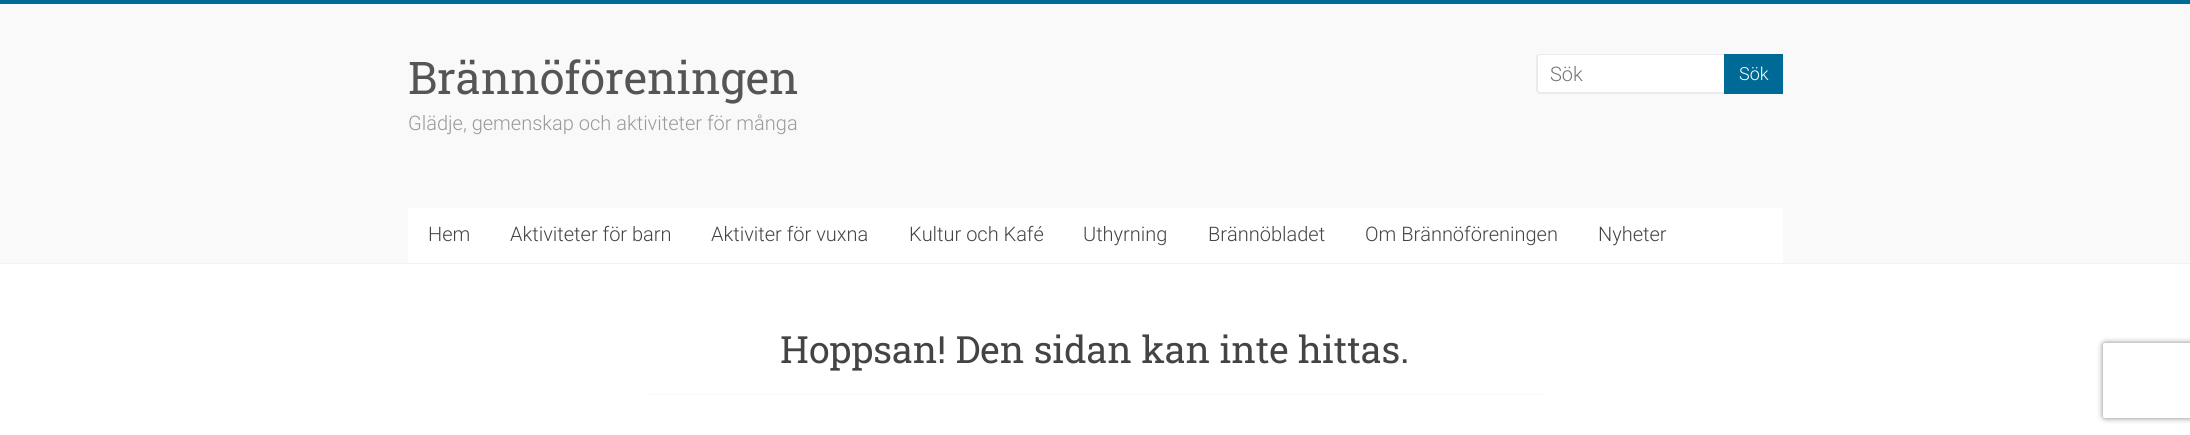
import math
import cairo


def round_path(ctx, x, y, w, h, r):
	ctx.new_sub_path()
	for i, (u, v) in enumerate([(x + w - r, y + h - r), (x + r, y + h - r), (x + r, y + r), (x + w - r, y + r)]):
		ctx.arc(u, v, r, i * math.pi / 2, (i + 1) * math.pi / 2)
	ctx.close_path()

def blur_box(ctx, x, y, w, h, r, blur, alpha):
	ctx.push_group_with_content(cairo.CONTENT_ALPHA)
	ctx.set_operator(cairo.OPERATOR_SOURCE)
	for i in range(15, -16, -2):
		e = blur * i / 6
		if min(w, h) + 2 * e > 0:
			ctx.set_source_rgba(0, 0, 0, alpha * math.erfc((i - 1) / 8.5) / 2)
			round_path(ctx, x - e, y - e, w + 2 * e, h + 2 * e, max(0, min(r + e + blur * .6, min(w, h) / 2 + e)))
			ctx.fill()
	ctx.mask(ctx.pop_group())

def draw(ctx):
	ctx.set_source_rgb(1, 1, 1)
	ctx.paint()
	ctx.set_source_rgb(0, 0.416, 0.592)
	ctx.rectangle(0, 0, 2190, 4)
	ctx.fill()
	ctx.set_source_rgb(0.973, 0.973, 0.973)
	ctx.rectangle(0, 4, 2190, 259)
	ctx.fill()
	ctx.set_source_rgb(0.949, 0.949, 0.949)
	ctx.rectangle(0, 263, 2190, 1)
	ctx.fill()
	ctx.select_font_face('Roboto Slab')
	ctx.set_font_size(45)
	ctx.set_source_rgb(0.333, 0.333, 0.333)
	ctx.move_to(408, 94)
	ctx.show_text('Brännöföreningen')
	ctx.select_font_face('Roboto Light')
	ctx.set_font_size(20)
	ctx.set_source_rgb(0.6, 0.6, 0.6)
	ctx.move_to(408, 130)
	ctx.show_text('Glädje, gemenskap och aktiviteter för många')
	ctx.set_source_rgb(1, 1, 1)
	ctx.new_path()
	ctx.move_to(1540, 54)
	ctx.line_to(1724, 54)
	ctx.line_to(1724, 94)
	ctx.line_to(1540, 94)
	ctx.curve_to(1538, 94, 1536, 92, 1536, 90)
	ctx.line_to(1536, 58)
	ctx.curve_to(1536, 56, 1538, 54, 1540, 54)
	ctx.close_path()
	ctx.fill()
	ctx.set_source_rgb(0.918, 0.918, 0.918)
	ctx.set_fill_rule(cairo.FILL_RULE_EVEN_ODD)
	ctx.new_path()
	ctx.move_to(1540, 54)
	ctx.line_to(1724, 54)
	ctx.line_to(1724, 94)
	ctx.line_to(1540, 94)
	ctx.curve_to(1538, 94, 1536, 92, 1536, 90)
	ctx.line_to(1536, 58)
	ctx.curve_to(1536, 55, 1538, 54, 1540, 54)
	ctx.close_path()
	ctx.move_to(1540, 55)
	ctx.line_to(1724, 55)
	ctx.line_to(1724, 92)
	ctx.line_to(1540, 92)
	ctx.curve_to(1539, 92, 1538, 91, 1538, 90)
	ctx.line_to(1538, 58)
	ctx.curve_to(1538, 56, 1539, 55, 1540, 55)
	ctx.close_path()
	ctx.fill()
	ctx.set_source_rgb(0.459, 0.459, 0.459)
	ctx.move_to(1550, 81)
	ctx.show_text('Sök')
	ctx.set_source_rgb(0, 0.416, 0.592)
	ctx.rectangle(1724, 54, 59, 40)
	ctx.fill()
	ctx.set_font_size(18)
	ctx.set_source_rgb(1, 1, 1)
	ctx.move_to(1739, 80)
	ctx.show_text('Sök')
	ctx.rectangle(408, 208, 1375, 55)
	ctx.fill()
	ctx.set_font_size(20)
	ctx.set_source_rgb(0.267, 0.267, 0.267)
	for x, y, s in [
		(428, 241, 'Hem'),
		(510, 241, 'Aktiviteter för barn'),
		(711, 241, 'Aktiviter för vuxna'),
		(909, 241, 'Kultur och Kafé'),
		(1083, 241, 'Uthyrning'),
		(1208, 241, 'Brännöbladet'),
		(1365, 241, 'Om Brännöföreningen'),
		(1598, 241, 'Nyheter'),
	]:
		ctx.move_to(x, y)
		ctx.show_text(s)
	ctx.set_source_rgb(0.973, 0.973, 0.973)
	ctx.rectangle(645, 394, 900, 1)
	ctx.fill()
	ctx.select_font_face('Roboto Slab')
	ctx.set_font_size(37.5)
	ctx.set_source_rgb(0.267, 0.267, 0.267)
	ctx.move_to(780, 363)
	ctx.show_text('Hoppsan! Den sidan kan inte hittas.')
	ctx.save()
	ctx.new_path()
	ctx.move_to(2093, 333)
	ctx.line_to(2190, 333)
	ctx.line_to(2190, 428)
	ctx.line_to(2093, 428)
	ctx.close_path()
	ctx.move_to(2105.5, 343)
	ctx.line_to(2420.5, 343)
	ctx.curve_to(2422, 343, 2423, 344, 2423, 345.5)
	ctx.line_to(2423, 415.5)
	ctx.curve_to(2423, 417, 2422, 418, 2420.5, 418)
	ctx.line_to(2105.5, 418)
	ctx.curve_to(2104, 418, 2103, 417, 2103, 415.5)
	ctx.line_to(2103, 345.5)
	ctx.curve_to(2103, 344, 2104, 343, 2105.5, 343)
	ctx.close_path()
	ctx.clip()
	ctx.set_source_rgb(0.502, 0.502, 0.502)
	blur_box(ctx, 2103, 343, 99, 75, 2.5, 3, 1)
	ctx.restore()


surface = cairo.ImageSurface(cairo.FORMAT_RGB24, 2190, 435)
ctx = cairo.Context(surface)
options = cairo.FontOptions()
options.set_hint_metrics(cairo.HINT_METRICS_OFF)
options.set_hint_style(cairo.HINT_STYLE_NONE)
ctx.set_font_options(options)
ctx.set_miter_limit(4)
draw(ctx)
surface.write_to_png('image.png')
